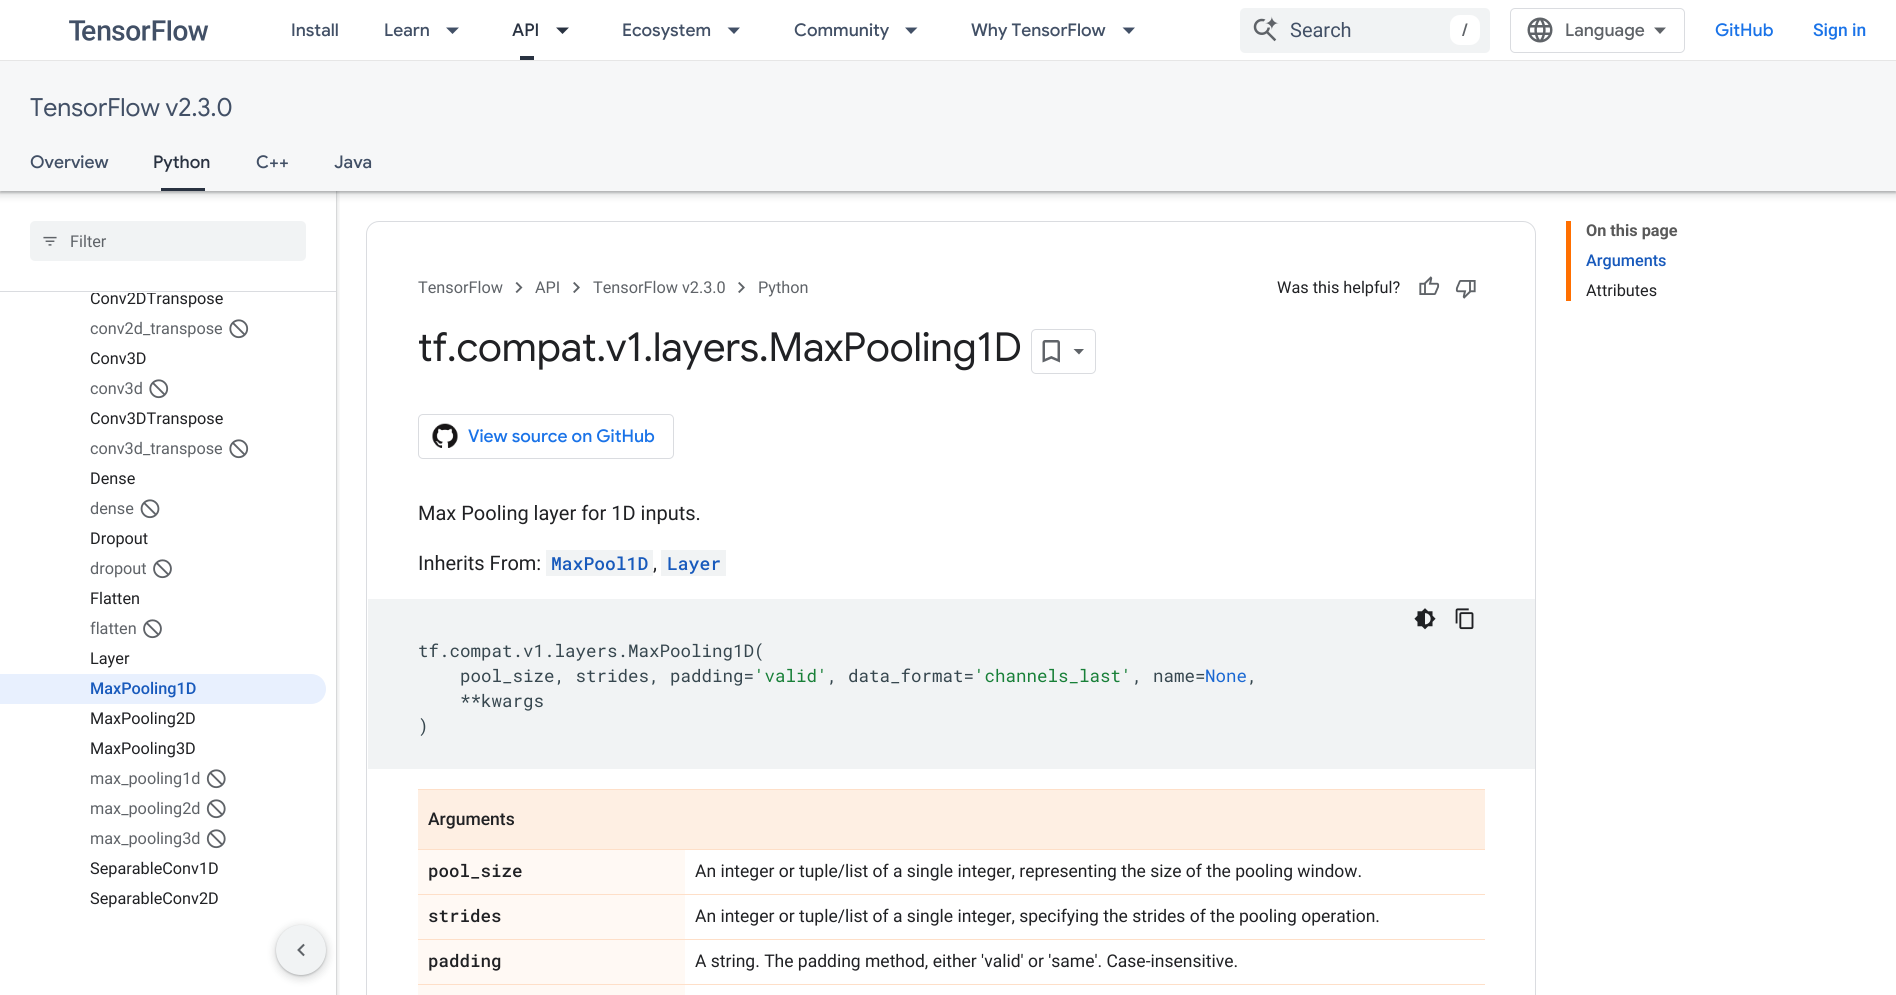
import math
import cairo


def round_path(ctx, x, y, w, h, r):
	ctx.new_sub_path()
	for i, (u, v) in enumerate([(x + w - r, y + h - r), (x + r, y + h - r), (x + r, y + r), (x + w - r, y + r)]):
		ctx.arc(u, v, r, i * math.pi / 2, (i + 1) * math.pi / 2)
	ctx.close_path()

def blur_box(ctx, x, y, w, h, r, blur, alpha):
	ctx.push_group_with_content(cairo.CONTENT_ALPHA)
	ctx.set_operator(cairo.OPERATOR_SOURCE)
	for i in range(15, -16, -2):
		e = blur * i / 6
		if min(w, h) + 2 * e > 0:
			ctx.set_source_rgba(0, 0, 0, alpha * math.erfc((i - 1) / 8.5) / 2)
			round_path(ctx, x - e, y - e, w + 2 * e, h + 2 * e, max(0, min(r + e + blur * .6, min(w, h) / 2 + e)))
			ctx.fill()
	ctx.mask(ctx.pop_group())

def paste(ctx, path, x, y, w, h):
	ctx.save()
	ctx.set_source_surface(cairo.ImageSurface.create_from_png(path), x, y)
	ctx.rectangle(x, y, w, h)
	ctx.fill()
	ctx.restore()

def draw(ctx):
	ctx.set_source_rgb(1, 1, 1)
	ctx.paint()
	ctx.save()
	ctx.rectangle(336, 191, 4, 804)
	ctx.clip()
	ctx.set_source_rgb(0.235, 0.251, 0.263)
	blur_box(ctx, -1, 0, 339, 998, 0, 2, 0.15)
	ctx.restore()
	ctx.save()
	ctx.rectangle(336, 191, 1, 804)
	ctx.clip()
	ctx.set_source_rgb(0.235, 0.251, 0.263)
	blur_box(ctx, 0, 1, 336, 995, 0, 1, 0.3)
	ctx.restore()
	ctx.set_source_rgb(0.235, 0.251, 0.263)
	blur_box(ctx, -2, 61, 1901, 135, 0, 4, 0.15)
	blur_box(ctx, 0, 63, 1896, 130, 0, 1, 0.3)
	ctx.set_source_rgb(1, 1, 1)
	ctx.rectangle(0, 0, 1896, 60)
	ctx.fill()
	ctx.set_source_rgb(0.902, 0.902, 0.902)
	ctx.rectangle(0, 60, 1896, 1)
	ctx.fill()
	paste(ctx, 'media/1.png', 69, 20, 140, 21)
	ctx.select_font_face('Google Sans Medium')
	ctx.set_font_size(17.5)
	ctx.set_source_rgb(0.259, 0.314, 0.4)
	ctx.move_to(291, 36)
	ctx.show_text('Install')
	ctx.move_to(384, 36)
	ctx.show_text('Learn')
	ctx.new_path()
	ctx.move_to(446, 27.5)
	ctx.line_to(459, 27.5)
	ctx.line_to(452.5, 34)
	ctx.close_path()
	ctx.fill()
	ctx.set_source_rgb(0.161, 0.196, 0.255)
	ctx.move_to(512, 36)
	ctx.show_text('API')
	ctx.rectangle(520, 56, 14, 4)
	ctx.fill()
	ctx.new_path()
	ctx.move_to(556, 27.5)
	ctx.line_to(569, 27.5)
	ctx.line_to(562.5, 34)
	ctx.close_path()
	ctx.fill()
	ctx.set_source_rgb(0.259, 0.314, 0.4)
	ctx.move_to(622, 36)
	ctx.show_text('Ecosystem')
	ctx.new_path()
	ctx.move_to(727.5, 27.5)
	ctx.line_to(740, 27.5)
	ctx.line_to(734, 34)
	ctx.close_path()
	ctx.fill()
	ctx.move_to(794, 36)
	ctx.show_text('Community')
	ctx.new_path()
	ctx.move_to(905, 27.5)
	ctx.line_to(917.5, 27.5)
	ctx.line_to(911, 34)
	ctx.close_path()
	ctx.fill()
	ctx.move_to(971, 36)
	ctx.show_text('Why TensorFlow')
	ctx.new_path()
	ctx.move_to(1122.5, 27.5)
	ctx.line_to(1135, 27.5)
	ctx.line_to(1129, 34)
	ctx.close_path()
	ctx.fill()
	ctx.set_source_rgb(0.945, 0.953, 0.957)
	round_path(ctx, 1240, 8, 250, 45, 5)
	ctx.fill()
	paste(ctx, 'media/2.png', 1253, 16, 26, 26)
	ctx.select_font_face('Roboto')
	ctx.set_font_size(20)
	ctx.set_source_rgb(0.259, 0.314, 0.4)
	ctx.move_to(1290, 37)
	ctx.show_text('Search')
	ctx.set_source_rgb(1, 1, 1)
	round_path(ctx, 1450, 15, 30, 30, 10)
	ctx.fill()
	ctx.select_font_face('Google Sans Medium')
	ctx.set_font_size(17.5)
	ctx.set_source_rgb(0.373, 0.388, 0.408)
	ctx.move_to(1462, 36)
	ctx.show_text('/')
	round_path(ctx, 1510.5, 8.5, 174, 44, 4.5)
	ctx.set_source_rgb(0.855, 0.863, 0.878)
	ctx.set_line_width(1)
	ctx.stroke()
	paste(ctx, 'media/3.png', 1527, 17, 26, 26)
	ctx.set_source_rgb(0.373, 0.388, 0.408)
	ctx.move_to(1565, 36)
	ctx.show_text('Language')
	ctx.new_path()
	ctx.move_to(1660, 34)
	ctx.line_to(1654, 27.5)
	ctx.line_to(1666, 27.5)
	ctx.close_path()
	ctx.fill()
	ctx.set_source_rgb(0.102, 0.451, 0.91)
	ctx.move_to(1715, 36)
	ctx.show_text('GitHub')
	ctx.select_font_face('Roboto Medium')
	ctx.move_to(1813, 36)
	ctx.show_text('Sign in')
	ctx.set_source_rgb(0.961, 0.965, 0.969)
	ctx.rectangle(0, 61, 1896, 130)
	ctx.fill()
	ctx.select_font_face('Google Sans')
	ctx.set_font_size(25)
	ctx.set_source_rgb(0.259, 0.314, 0.4)
	ctx.move_to(30, 116)
	ctx.show_text('TensorFlow v2.3.0')
	ctx.select_font_face('Google Sans Medium')
	ctx.set_font_size(17.5)
	ctx.move_to(30, 168)
	ctx.show_text('Overview')
	ctx.set_source_rgb(0.161, 0.196, 0.255)
	ctx.move_to(153, 168)
	ctx.show_text('Python')
	ctx.rectangle(161, 188, 44, 3)
	ctx.fill()
	ctx.set_source_rgb(0.259, 0.314, 0.4)
	ctx.move_to(256, 168)
	ctx.show_text('C++')
	ctx.move_to(334, 168)
	ctx.show_text('Java')
	ctx.select_font_face('Roboto')
	ctx.set_font_size(16.25)
	ctx.set_source_rgb(0.125, 0.129, 0.141)
	ctx.move_to(90, 304)
	ctx.show_text('Conv2DTranspose')
	ctx.set_source_rgb(1, 1, 1)
	ctx.rectangle(93, 292, 63, 1)
	ctx.fill()
	ctx.set_source_rgb(0.855, 0.863, 0.878)
	ctx.rectangle(0, 291, 336, 1)
	ctx.fill()
	ctx.set_source_rgb(0.945, 0.953, 0.957)
	round_path(ctx, 30, 221, 276, 40, 5)
	ctx.fill()
	paste(ctx, 'media/4.png', 43, 236, 14, 10)
	ctx.set_source_rgb(0.373, 0.388, 0.408)
	ctx.move_to(70, 247)
	ctx.show_text('Filter')
	ctx.move_to(90, 334)
	ctx.show_text('conv2d_transpose')
	paste(ctx, 'media/5.png', 229, 319, 20, 20)
	ctx.set_source_rgb(0.125, 0.129, 0.141)
	ctx.move_to(90, 364)
	ctx.show_text('Conv3D')
	ctx.set_source_rgb(0.373, 0.388, 0.408)
	ctx.move_to(90, 394)
	ctx.show_text('conv3d')
	paste(ctx, 'media/5.png', 149, 379, 20, 20)
	ctx.set_source_rgb(0.125, 0.129, 0.141)
	ctx.move_to(90, 424)
	ctx.show_text('Conv3DTranspose')
	ctx.set_source_rgb(0.373, 0.388, 0.408)
	ctx.move_to(90, 454)
	ctx.show_text('conv3d_transpose')
	paste(ctx, 'media/5.png', 229, 439, 20, 20)
	ctx.set_source_rgb(0.125, 0.129, 0.141)
	ctx.move_to(90, 484)
	ctx.show_text('Dense')
	ctx.set_source_rgb(0.373, 0.388, 0.408)
	ctx.move_to(90, 514)
	ctx.show_text('dense')
	paste(ctx, 'media/6.png', 140, 499, 20, 20)
	ctx.set_source_rgb(0.125, 0.129, 0.141)
	ctx.move_to(90, 544)
	ctx.show_text('Dropout')
	ctx.set_source_rgb(0.373, 0.388, 0.408)
	ctx.move_to(90, 574)
	ctx.show_text('dropout')
	paste(ctx, 'media/7.png', 153, 559, 19, 20)
	ctx.set_source_rgb(0.125, 0.129, 0.141)
	ctx.move_to(90, 604)
	ctx.show_text('Flatten')
	ctx.set_source_rgb(0.373, 0.388, 0.408)
	ctx.move_to(90, 634)
	ctx.show_text('flatten')
	paste(ctx, 'media/7.png', 143, 619, 19, 20)
	ctx.set_source_rgb(0.125, 0.129, 0.141)
	ctx.move_to(90, 664)
	ctx.show_text('Layer')
	ctx.set_source_rgb(0.91, 0.941, 0.996)
	ctx.new_path()
	ctx.move_to(0, 674)
	ctx.line_to(311, 674)
	ctx.curve_to(319.5, 674, 326, 680.5, 326, 689)
	ctx.curve_to(326, 697.5, 319.5, 704, 311, 704)
	ctx.line_to(0, 704)
	ctx.close_path()
	ctx.fill()
	ctx.select_font_face('Roboto Medium')
	ctx.set_source_rgb(0.094, 0.353, 0.737)
	ctx.move_to(90, 694)
	ctx.show_text('MaxPooling1D')
	ctx.select_font_face('Roboto')
	ctx.set_source_rgb(0.125, 0.129, 0.141)
	ctx.move_to(90, 724)
	ctx.show_text('MaxPooling2D')
	ctx.move_to(90, 754)
	ctx.show_text('MaxPooling3D')
	ctx.set_source_rgb(0.373, 0.388, 0.408)
	ctx.move_to(90, 784)
	ctx.show_text('max_pooling1d')
	paste(ctx, 'media/8.png', 206, 769, 20, 20)
	ctx.move_to(90, 814)
	ctx.show_text('max_pooling2d')
	paste(ctx, 'media/8.png', 206, 799, 20, 20)
	ctx.move_to(90, 844)
	ctx.show_text('max_pooling3d')
	paste(ctx, 'media/8.png', 206, 829, 20, 20)
	ctx.set_source_rgb(0.125, 0.129, 0.141)
	ctx.move_to(90, 874)
	ctx.show_text('SeparableConv1D')
	ctx.move_to(90, 904)
	ctx.show_text('SeparableConv2D')
	ctx.set_source_rgb(1, 0.435, 0)
	ctx.rectangle(1566, 221, 5, 80)
	ctx.fill()
	ctx.select_font_face('Roboto', cairo.FONT_SLANT_NORMAL, cairo.FONT_WEIGHT_BOLD)
	ctx.set_source_rgb(0.349, 0.349, 0.349)
	ctx.move_to(1586, 236)
	ctx.show_text('On this page')
	ctx.select_font_face('Roboto Medium')
	ctx.set_source_rgb(0.094, 0.353, 0.737)
	ctx.move_to(1586, 266)
	ctx.show_text('Arguments')
	ctx.select_font_face('Roboto')
	ctx.set_source_rgb(0.125, 0.129, 0.141)
	ctx.move_to(1586, 296)
	ctx.show_text('Attributes')
	round_path(ctx, 366.5, 221.5, 1169, 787, 12.5)
	ctx.set_source_rgb(0.855, 0.863, 0.878)
	ctx.stroke()
	ctx.set_source_rgb(0.373, 0.388, 0.408)
	ctx.move_to(418, 293)
	ctx.show_text('TensorFlow')
	paste(ctx, 'media/9.png', 515, 282, 8, 11)
	ctx.move_to(535, 293)
	ctx.show_text('API')
	paste(ctx, 'media/10.png', 573, 282, 7, 11)
	ctx.move_to(593, 293)
	ctx.show_text('TensorFlow v2.3.0')
	paste(ctx, 'media/10.png', 738, 282, 7, 11)
	ctx.move_to(758, 293)
	ctx.show_text('Python')
	ctx.set_source_rgb(0.125, 0.129, 0.141)
	ctx.move_to(1277, 293)
	ctx.show_text('Was this helpful?')
	paste(ctx, 'media/11.png', 1419, 276, 21, 19)
	paste(ctx, 'media/12.png', 1455, 280, 21, 19)
	ctx.select_font_face('Google Sans')
	ctx.set_font_size(40)
	ctx.move_to(418, 361)
	ctx.show_text('tf.compat.v1.layers.MaxPooling1D')
	round_path(ctx, 1031.5, 329.5, 64, 44, 4.5)
	ctx.set_source_rgb(0.855, 0.863, 0.878)
	ctx.stroke()
	paste(ctx, 'media/13.png', 1042, 340, 18, 23)
	ctx.set_source_rgb(0.373, 0.388, 0.408)
	ctx.new_path()
	ctx.move_to(1073.5, 349)
	ctx.line_to(1084, 349)
	ctx.line_to(1079, 354.5)
	ctx.close_path()
	ctx.fill()
	round_path(ctx, 418.5, 414.5, 255, 44, 4.5)
	ctx.set_source_rgb(0.855, 0.863, 0.878)
	ctx.stroke()
	paste(ctx, 'media/14.png', 432, 423, 26, 25)
	ctx.select_font_face('Google Sans Medium')
	ctx.set_font_size(17.5)
	ctx.set_source_rgb(0.102, 0.451, 0.91)
	ctx.move_to(468, 442)
	ctx.show_text('View source on GitHub')
	ctx.select_font_face('Roboto')
	ctx.set_font_size(20)
	ctx.set_source_rgb(0.125, 0.129, 0.141)
	ctx.move_to(418, 520)
	ctx.show_text('Max Pooling layer for 1D inputs.')
	ctx.move_to(418, 570)
	ctx.show_text('Inherits From:')
	ctx.set_source_rgb(0.945, 0.953, 0.957)
	ctx.rectangle(546, 550, 107, 26)
	ctx.fill()
	ctx.select_font_face('Roboto Mono Medium')
	ctx.set_font_size(18)
	ctx.set_source_rgb(0.094, 0.353, 0.737)
	ctx.move_to(551, 570)
	ctx.show_text('MaxPool1D')
	ctx.select_font_face('Roboto')
	ctx.set_font_size(20)
	ctx.set_source_rgb(0.125, 0.129, 0.141)
	ctx.move_to(653, 570)
	ctx.show_text(',')
	ctx.set_source_rgb(0.945, 0.953, 0.957)
	ctx.rectangle(661, 550, 65, 26)
	ctx.fill()
	ctx.select_font_face('Roboto Mono Medium')
	ctx.set_font_size(18)
	ctx.set_source_rgb(0.094, 0.353, 0.737)
	ctx.move_to(667, 570)
	ctx.show_text('Layer')
	ctx.set_source_rgb(0.945, 0.953, 0.957)
	ctx.rectangle(368, 599, 1167, 170)
	ctx.fill()
	paste(ctx, 'media/15.png', 1414, 608, 22, 22)
	paste(ctx, 'media/16.png', 1455, 608, 19, 22)
	ctx.select_font_face('Roboto Mono')
	ctx.set_font_size(17.5)
	ctx.set_source_rgb(0.216, 0.278, 0.31)
	ctx.move_to(418, 657)
	ctx.show_text('tf.compat.v1.layers.MaxPooling1D(')
	ctx.move_to(460, 682)
	ctx.show_text('pool_size, strides, padding=')
	ctx.set_source_rgb(0.094, 0.502, 0.22)
	ctx.move_to(754, 682)
	ctx.show_text('\'valid\'')
	ctx.set_source_rgb(0.216, 0.278, 0.31)
	ctx.move_to(827, 682)
	ctx.show_text(', data_format=')
	ctx.set_source_rgb(0.094, 0.502, 0.22)
	ctx.move_to(974, 682)
	ctx.show_text('\'channels_last\'')
	ctx.set_source_rgb(0.216, 0.278, 0.31)
	ctx.move_to(1132, 682)
	ctx.show_text(', name=')
	ctx.set_source_rgb(0.098, 0.404, 0.824)
	ctx.move_to(1205, 682)
	ctx.show_text('None')
	ctx.set_source_rgb(0.216, 0.278, 0.31)
	for x, y, s in [
		(1247, 682, ','),
		(460, 707, '**kwargs'),
		(418, 732, ')'),
	]:
		ctx.move_to(x, y)
		ctx.show_text(s)
	ctx.set_source_rgb(0.996, 0.937, 0.89)
	ctx.rectangle(418, 790, 1067, 59)
	ctx.fill()
	ctx.set_source_rgb(0.996, 0.875, 0.784)
	ctx.rectangle(418, 789, 1067, 1)
	ctx.rectangle(418, 849, 1067, 1)
	ctx.fill()
	ctx.select_font_face('Roboto Medium')
	ctx.set_source_rgb(0.125, 0.129, 0.141)
	ctx.move_to(428, 825)
	ctx.show_text('Arguments')
	ctx.set_source_rgb(0.996, 0.875, 0.784)
	ctx.rectangle(418, 894, 1067, 1)
	ctx.fill()
	ctx.set_source_rgb(1, 0.976, 0.957)
	ctx.rectangle(418, 850, 267, 44)
	ctx.fill()
	ctx.select_font_face('Roboto Mono Medium')
	ctx.set_source_rgb(0.125, 0.129, 0.141)
	ctx.move_to(428, 877)
	ctx.show_text('pool_size')
	ctx.select_font_face('Roboto')
	ctx.move_to(695, 877)
	ctx.show_text('An integer or tuple/list of a single integer, representing the size of the pooling window.')
	ctx.set_source_rgb(0.996, 0.875, 0.784)
	ctx.rectangle(418, 939, 1067, 1)
	ctx.fill()
	ctx.set_source_rgb(1, 0.976, 0.957)
	ctx.rectangle(418, 895, 267, 44)
	ctx.fill()
	ctx.select_font_face('Roboto Mono Medium')
	ctx.set_source_rgb(0.125, 0.129, 0.141)
	ctx.move_to(428, 922)
	ctx.show_text('strides')
	ctx.select_font_face('Roboto')
	ctx.move_to(695, 922)
	ctx.show_text('An integer or tuple/list of a single integer, specifying the strides of the pooling operation.')
	ctx.set_source_rgb(0.996, 0.875, 0.784)
	ctx.rectangle(418, 984, 1067, 1)
	ctx.fill()
	ctx.set_source_rgb(1, 0.976, 0.957)
	ctx.rectangle(418, 940, 267, 44)
	ctx.fill()
	ctx.select_font_face('Roboto Mono Medium')
	ctx.set_source_rgb(0.125, 0.129, 0.141)
	ctx.move_to(428, 967)
	ctx.show_text('padding')
	ctx.select_font_face('Roboto')
	ctx.move_to(695, 967)
	ctx.show_text('A string. The padding method, either \'valid\' or \'same\'. Case-insensitive.')
	ctx.set_source_rgb(1, 0.976, 0.957)
	ctx.rectangle(418, 985, 267, 10)
	ctx.fill()
	ctx.set_source_rgb(0.235, 0.251, 0.263)
	blur_box(ctx, 274, 925, 55, 55, 27.5, 4, 0.15)
	blur_box(ctx, 276, 926, 50, 50, 25, 1, 0.3)
	ctx.set_source_rgb(0.945, 0.953, 0.957)
	ctx.arc(301, 950, 25, 0, 2 * math.pi)
	ctx.fill()
	paste(ctx, 'media/17.png', 297, 943, 8, 14)


surface = cairo.ImageSurface(cairo.FORMAT_RGB24, 1896, 995)
ctx = cairo.Context(surface)
options = cairo.FontOptions()
options.set_hint_metrics(cairo.HINT_METRICS_OFF)
options.set_hint_style(cairo.HINT_STYLE_NONE)
ctx.set_font_options(options)
ctx.set_miter_limit(4)
draw(ctx)
surface.write_to_png('image.png')
